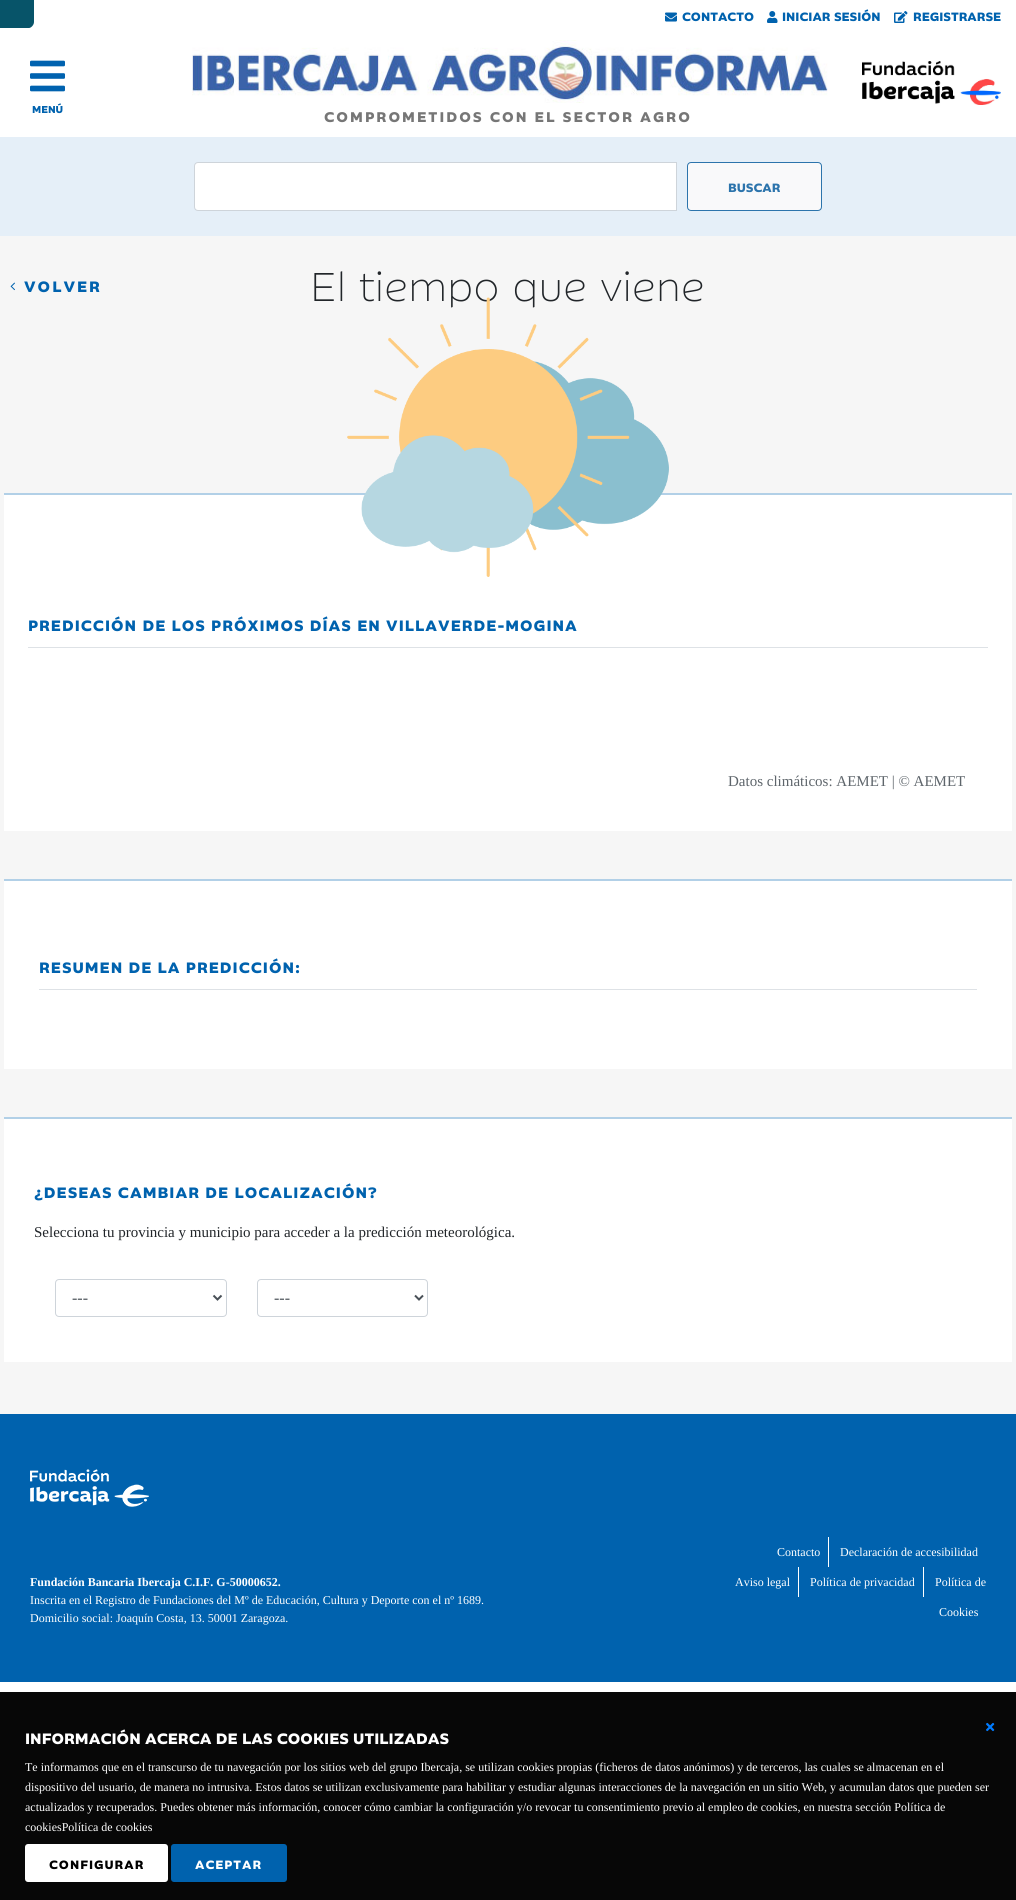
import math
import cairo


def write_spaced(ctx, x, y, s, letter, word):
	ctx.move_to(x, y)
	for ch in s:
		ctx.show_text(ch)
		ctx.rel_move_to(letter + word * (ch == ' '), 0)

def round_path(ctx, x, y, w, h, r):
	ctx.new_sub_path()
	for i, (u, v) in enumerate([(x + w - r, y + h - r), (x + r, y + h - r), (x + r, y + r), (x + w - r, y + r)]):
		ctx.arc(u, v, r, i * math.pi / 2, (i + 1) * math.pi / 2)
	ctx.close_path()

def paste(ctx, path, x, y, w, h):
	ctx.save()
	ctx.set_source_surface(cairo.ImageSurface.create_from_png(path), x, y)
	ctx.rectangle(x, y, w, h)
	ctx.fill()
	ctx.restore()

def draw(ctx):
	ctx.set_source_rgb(1, 1, 1)
	ctx.paint()
	ctx.set_source_rgb(0.031, 0.329, 0.412)
	ctx.new_path()
	ctx.move_to(-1, 28)
	ctx.line_to(-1, -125)
	ctx.line_to(34, -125)
	ctx.line_to(34, 22)
	ctx.curve_to(34, 25, 31, 28, 29, 28)
	ctx.close_path()
	ctx.fill()
	paste(ctx, 'media/1.png', 665, 12, 12, 10)
	ctx.select_font_face('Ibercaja', cairo.FONT_SLANT_NORMAL, cairo.FONT_WEIGHT_BOLD)
	ctx.set_font_size(12)
	ctx.set_source_rgb(0, 0.384, 0.682)
	ctx.move_to(682, 21)
	ctx.show_text('CONTACTO')
	paste(ctx, 'media/2.png', 767, 11, 11, 12)
	ctx.move_to(782, 21)
	ctx.show_text('INICIAR SESIÓN')
	paste(ctx, 'media/3.png', 894, 11, 14, 12)
	ctx.move_to(913, 21)
	ctx.show_text('REGISTRARSE')
	paste(ctx, 'media/4.png', 862, 61, 139, 44)
	paste(ctx, 'media/5.png', 30, 60, 35, 32)
	ctx.set_font_size(10)
	ctx.move_to(32, 113)
	ctx.show_text('MENÚ')
	paste(ctx, 'media/6.png', 192, 40, 636, 63)
	ctx.set_font_size(14)
	ctx.set_source_rgb(0.463, 0.463, 0.463)
	write_spaced(ctx, 324, 122, 'COMPROMETIDOS CON EL SECTOR AGRO', 2, 0)
	ctx.set_source_rgb(0.898, 0.937, 0.969)
	ctx.rectangle(0, 137, 1016, 99)
	ctx.fill()
	ctx.set_source_rgb(1, 1, 1)
	ctx.new_path()
	ctx.move_to(198, 162.5)
	ctx.line_to(676.5, 162.5)
	ctx.line_to(676.5, 210.5)
	ctx.line_to(198, 210.5)
	ctx.curve_to(196, 210.5, 194.5, 209, 194.5, 207)
	ctx.line_to(194.5, 166)
	ctx.curve_to(194.5, 164, 196, 162.5, 198, 162.5)
	ctx.close_path()
	ctx.fill_preserve()
	ctx.set_source_rgb(0.808, 0.831, 0.855)
	ctx.set_line_width(1)
	ctx.stroke()
	ctx.set_source_rgb(0.973, 0.976, 0.98)
	round_path(ctx, 687.5, 162.5, 134, 48, 3.5)
	ctx.fill_preserve()
	ctx.set_source_rgb(0.173, 0.455, 0.675)
	ctx.stroke()
	ctx.set_font_size(12)
	ctx.move_to(728, 192)
	ctx.show_text('BUSCAR')
	ctx.set_source_rgb(0.031, 0.031, 0.031)
	ctx.rectangle(0, 1692, 1016, 208)
	ctx.fill()
	paste(ctx, 'media/7.png', 986, 1722, 9, 10)
	ctx.set_font_size(15)
	ctx.set_source_rgb(1, 1, 1)
	ctx.move_to(25, 1744)
	ctx.show_text('INFORMACIÓN ACERCA DE LAS COOKIES UTILIZADAS')
	ctx.select_font_face('Liberation Serif')
	ctx.set_font_size(12)
	for x, y, s in [
		(25, 1771, 'Te informamos que en el transcurso de tu navegación por los sitios web del grupo Ibercaja, se utilizan cookies propias (ficheros de datos anónimos) y de terceros, las cuales se almacenan en el'),
		(25, 1791, 'dispositivo del usuario, de manera no intrusiva. Estos datos se utilizan exclusivamente para habilitar y estudiar algunas interacciones de la navegación en un sitio Web, y acumulan datos que pueden ser'),
		(25, 1811, 'actualizados y recuperados. Puedes obtener más información, conocer cómo cambiar la configuración y/o revocar tu consentimiento previo al empleo de cookies, en nuestra sección Política de'),
		(25, 1831, 'cookiesPolítica de cookies'),
	]:
		ctx.move_to(x, y)
		ctx.show_text(s)
	round_path(ctx, 25, 1844, 143, 38, 3)
	ctx.fill()
	ctx.select_font_face('Ibercaja', cairo.FONT_SLANT_NORMAL, cairo.FONT_WEIGHT_BOLD)
	ctx.set_source_rgb(0, 0, 0)
	write_spaced(ctx, 49, 1869, 'CONFIGURAR', 1, 0)
	ctx.set_source_rgb(0, 0.384, 0.682)
	round_path(ctx, 171, 1844, 116, 38, 3)
	ctx.fill()
	ctx.set_source_rgb(1, 1, 1)
	write_spaced(ctx, 195, 1869, 'ACEPTAR', 1, 0)
	ctx.set_source_rgb(0.961, 0.961, 0.961)
	ctx.rectangle(0, 236, 1016, 1178)
	ctx.fill()
	paste(ctx, 'media/8.png', 10, 282, 5, 9)
	ctx.set_font_size(15)
	ctx.set_source_rgb(0, 0.384, 0.682)
	write_spaced(ctx, 24, 292, 'VOLVER', 2, 0)
	ctx.select_font_face('Ibercaja Light')
	ctx.set_font_size(40)
	ctx.set_source_rgb(0.129, 0.145, 0.161)
	ctx.move_to(310, 301)
	ctx.show_text('El tiempo que viene')
	ctx.set_source_rgb(1, 1, 1)
	ctx.rectangle(4, 495, 1008, 336)
	ctx.fill()
	ctx.set_source_rgb(0.698, 0.816, 0.906)
	ctx.rectangle(4, 493, 1008, 2)
	ctx.fill()
	paste(ctx, 'media/9.png', 347, 297, 322, 280)
	ctx.set_source_rgb(0.871, 0.886, 0.902)
	ctx.rectangle(28, 647, 960, 1)
	ctx.fill()
	ctx.select_font_face('Ibercaja', cairo.FONT_SLANT_NORMAL, cairo.FONT_WEIGHT_BOLD)
	ctx.set_font_size(15)
	ctx.set_source_rgb(0, 0.384, 0.682)
	write_spaced(ctx, 28, 631, 'PREDICCIÓN DE LOS PRÓXIMOS DÍAS EN VILLAVERDE-MOGINA', 1, 0)
	ctx.select_font_face('Liberation Serif')
	ctx.set_source_rgb(0.369, 0.396, 0.42)
	ctx.move_to(728, 786)
	ctx.show_text('Datos climáticos: AEMET | © AEMET')
	ctx.set_source_rgb(1, 1, 1)
	ctx.rectangle(4, 881, 1008, 188)
	ctx.fill()
	ctx.set_source_rgb(0.698, 0.816, 0.906)
	ctx.rectangle(4, 879, 1008, 2)
	ctx.fill()
	ctx.set_source_rgb(0.871, 0.886, 0.902)
	ctx.rectangle(39, 989, 938, 1)
	ctx.fill()
	ctx.select_font_face('Ibercaja', cairo.FONT_SLANT_NORMAL, cairo.FONT_WEIGHT_BOLD)
	ctx.set_source_rgb(0, 0.384, 0.682)
	write_spaced(ctx, 39, 973, 'RESUMEN DE LA PREDICCIÓN:', 1, 0)
	ctx.set_source_rgb(1, 1, 1)
	ctx.rectangle(4, 1119, 1008, 243)
	ctx.fill()
	ctx.set_source_rgb(0.698, 0.816, 0.906)
	ctx.rectangle(4, 1117, 1008, 2)
	ctx.fill()
	ctx.set_source_rgb(0, 0.384, 0.682)
	write_spaced(ctx, 34, 1198, '¿DESEAS CAMBIAR DE LOCALIZACIÓN?', 1, 0)
	ctx.select_font_face('Liberation Serif')
	ctx.set_source_rgb(0.129, 0.145, 0.161)
	ctx.move_to(34, 1237)
	ctx.show_text('Selecciona tu provincia y municipio para acceder a la predicción meteorológica.')
	round_path(ctx, 55.5, 1279.5, 171, 37, 3.5)
	ctx.set_source_rgb(0.808, 0.831, 0.855)
	ctx.stroke()
	ctx.new_path()
	ctx.move_to(213.5, 1295.5)
	ctx.line_to(217.5, 1299.5)
	ctx.line_to(221.5, 1295.5)
	ctx.set_source_rgb(0.286, 0.314, 0.341)
	ctx.set_line_width(2)
	ctx.stroke()
	ctx.set_font_size(16)
	ctx.move_to(72, 1303)
	ctx.show_text('---')
	round_path(ctx, 257.5, 1279.5, 170, 37, 3.5)
	ctx.set_source_rgb(0.808, 0.831, 0.855)
	ctx.set_line_width(1)
	ctx.stroke()
	ctx.new_path()
	ctx.move_to(415, 1295.5)
	ctx.line_to(419, 1299.5)
	ctx.line_to(423, 1295.5)
	ctx.set_source_rgb(0.286, 0.314, 0.341)
	ctx.set_line_width(2)
	ctx.stroke()
	ctx.move_to(274, 1303)
	ctx.show_text('---')
	ctx.set_source_rgb(0, 0.384, 0.682)
	ctx.rectangle(0, 1414, 1016, 268)
	ctx.fill()
	paste(ctx, 'media/10.png', 30, 1469, 119, 38)
	ctx.select_font_face('Liberation Serif', cairo.FONT_SLANT_NORMAL, cairo.FONT_WEIGHT_BOLD)
	ctx.set_font_size(12)
	ctx.set_source_rgb(1, 1, 1)
	ctx.move_to(30, 1586)
	ctx.show_text('Fundación Bancaria Ibercaja C.I.F. G-50000652.')
	ctx.select_font_face('Liberation Serif')
	for x, y, s in [
		(30, 1604, 'Inscrita en el Registro de Fundaciones del Mº de Educación, Cultura y Deporte con el nº 1689.'),
		(30, 1622, 'Domicilio social: Joaquín Costa, 13. 50001 Zaragoza.'),
		(777, 1556, 'Contacto'),
	]:
		ctx.move_to(x, y)
		ctx.show_text(s)
	ctx.rectangle(828, 1537, 1, 30)
	ctx.fill()
	ctx.move_to(840, 1556)
	ctx.show_text('Declaración de accesibilidad')
	ctx.move_to(735, 1586)
	ctx.show_text('Aviso legal')
	ctx.rectangle(798, 1567, 1, 30)
	ctx.fill()
	ctx.move_to(810, 1586)
	ctx.show_text('Política de privacidad')
	ctx.rectangle(923, 1567, 1, 30)
	ctx.fill()
	ctx.move_to(935, 1586)
	ctx.show_text('Política de')
	ctx.move_to(939, 1616)
	ctx.show_text('Cookies')


surface = cairo.ImageSurface(cairo.FORMAT_RGB24, 1016, 1900)
ctx = cairo.Context(surface)
options = cairo.FontOptions()
options.set_hint_metrics(cairo.HINT_METRICS_OFF)
options.set_hint_style(cairo.HINT_STYLE_NONE)
ctx.set_font_options(options)
ctx.set_miter_limit(4)
draw(ctx)
surface.write_to_png('image.png')
